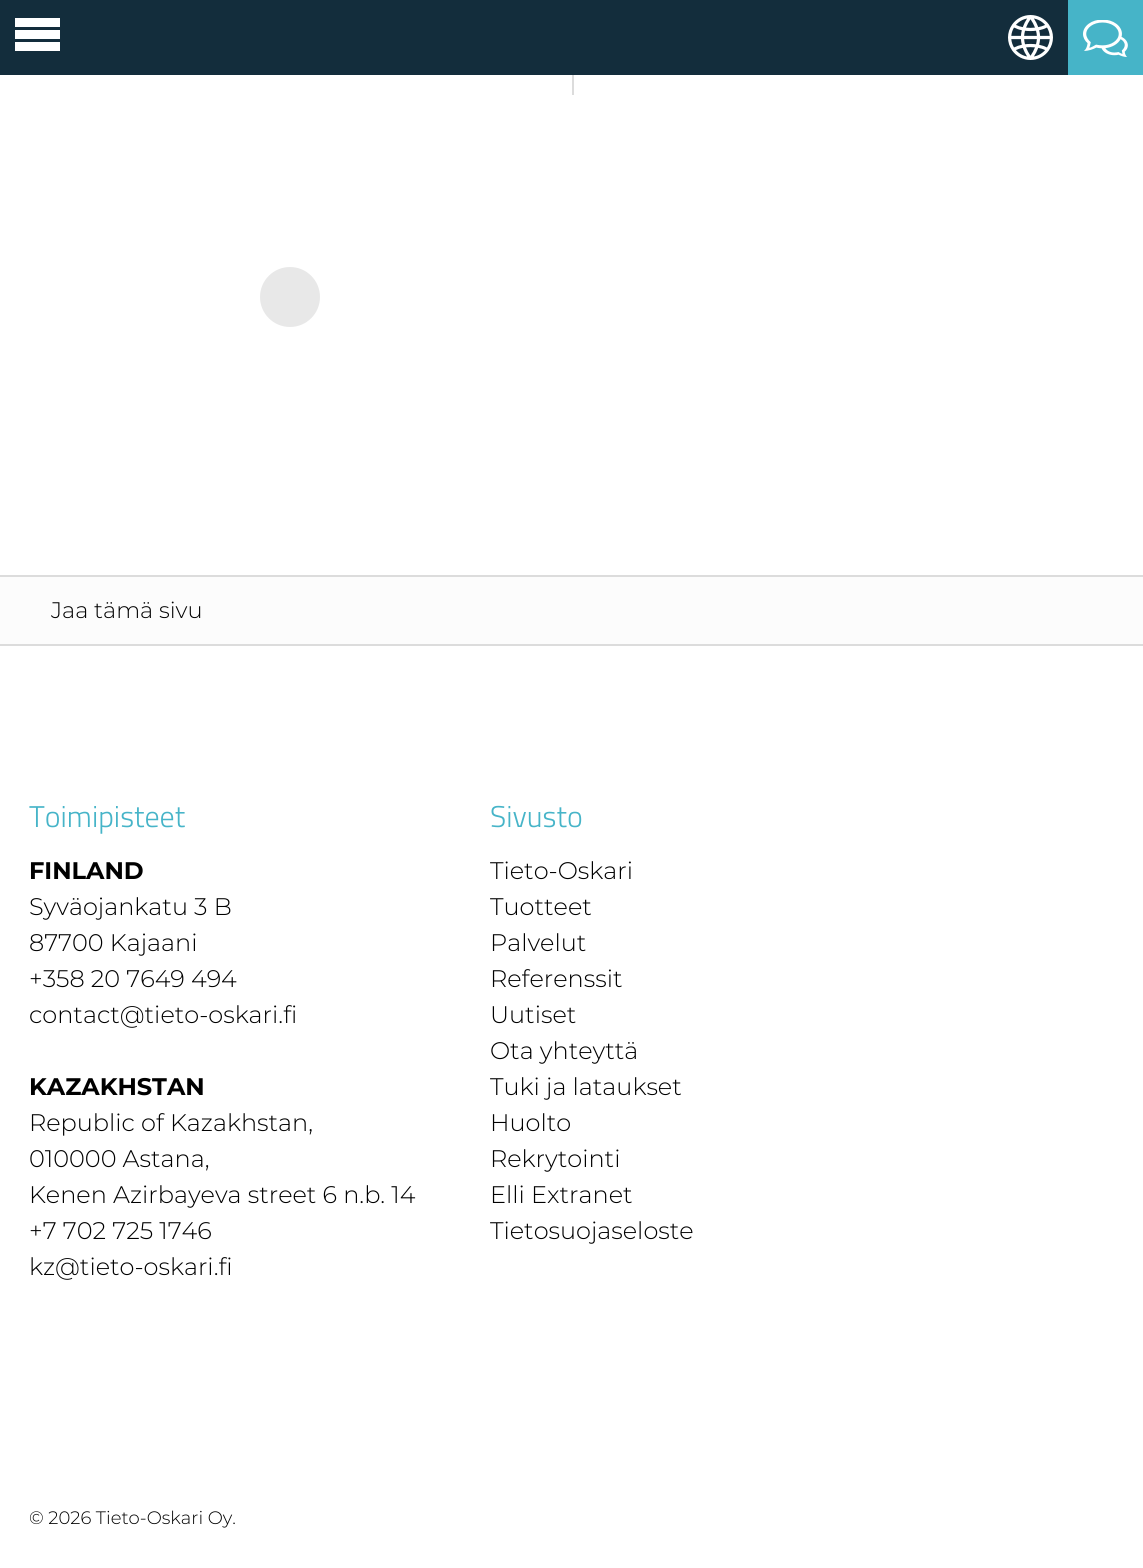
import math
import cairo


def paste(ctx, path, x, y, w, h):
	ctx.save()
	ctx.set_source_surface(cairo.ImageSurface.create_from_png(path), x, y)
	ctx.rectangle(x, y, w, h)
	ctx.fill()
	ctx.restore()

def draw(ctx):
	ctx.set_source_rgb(1, 1, 1)
	ctx.paint()
	ctx.set_source_rgb(0.078, 0.176, 0.235)
	ctx.rectangle(0, 0, 1068, 75)
	ctx.fill()
	ctx.set_source_rgb(1, 1, 1)
	ctx.rectangle(15, 18, 45, 9)
	ctx.rectangle(15, 30, 45, 9)
	ctx.rectangle(15, 42, 45, 9)
	ctx.fill()
	paste(ctx, 'media/1.png', 1008, 15, 45, 45)
	ctx.set_source_rgb(0.275, 0.706, 0.784)
	ctx.rectangle(1068, 0, 75, 75)
	ctx.fill()
	paste(ctx, 'media/2.png', 1083, 20, 45, 37)
	ctx.set_source_rgb(0.863, 0.863, 0.863)
	ctx.rectangle(572, 75, 2, 20)
	ctx.fill()
	ctx.set_source_rgb(0.91, 0.91, 0.91)
	ctx.arc(290, 297, 30, 0, 2 * math.pi)
	ctx.fill()
	ctx.set_source_rgb(0.988, 0.988, 0.988)
	ctx.rectangle(0, 577, 1143, 67)
	ctx.fill()
	ctx.set_source_rgb(0.863, 0.863, 0.863)
	ctx.rectangle(0, 575, 1143, 2)
	ctx.fill()
	ctx.select_font_face('Montserrat Light')
	ctx.set_font_size(22.5)
	ctx.set_source_rgb(0, 0, 0)
	ctx.move_to(51, 618)
	ctx.show_text('Jaa tämä sivu')
	ctx.set_source_rgb(0.863, 0.863, 0.863)
	ctx.rectangle(0, 644, 1143, 2)
	ctx.fill()
	ctx.select_font_face('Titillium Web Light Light')
	ctx.set_font_size(30)
	ctx.set_source_rgb(0.275, 0.706, 0.784)
	ctx.move_to(29, 827)
	ctx.show_text('Toimipisteet')
	ctx.select_font_face('Montserrat', cairo.FONT_SLANT_NORMAL, cairo.FONT_WEIGHT_BOLD)
	ctx.set_font_size(24)
	ctx.set_source_rgb(0, 0, 0)
	ctx.move_to(29, 879)
	ctx.show_text('FINLAND')
	ctx.select_font_face('Montserrat Light')
	for x, y, s in [
		(29, 915, 'Syväojankatu 3 B'),
		(29, 951, '87700 Kajaani'),
		(29, 987, '+358 20 7649 494'),
		(29, 1023, 'contact@tieto-oskari.fi'),
	]:
		ctx.move_to(x, y)
		ctx.show_text(s)
	ctx.select_font_face('Montserrat', cairo.FONT_SLANT_NORMAL, cairo.FONT_WEIGHT_BOLD)
	ctx.move_to(29, 1095)
	ctx.show_text('KAZAKHSTAN')
	ctx.select_font_face('Montserrat Light')
	for x, y, s in [
		(29, 1131, 'Republic of Kazakhstan,'),
		(29, 1167, '010000 Astana,'),
		(29, 1203, 'Kenen Azirbayeva street 6 n.b. 14'),
		(29, 1239, '+7 702 725 1746'),
		(29, 1275, 'kz@tieto-oskari.fi'),
	]:
		ctx.move_to(x, y)
		ctx.show_text(s)
	ctx.select_font_face('Titillium Web Light Light')
	ctx.set_font_size(30)
	ctx.set_source_rgb(0.275, 0.706, 0.784)
	ctx.move_to(490, 827)
	ctx.show_text('Sivusto')
	ctx.select_font_face('Montserrat Light')
	ctx.set_font_size(24)
	ctx.set_source_rgb(0, 0, 0)
	for x, y, s in [
		(490, 879, 'Tieto-Oskari'),
		(490, 915, 'Tuotteet'),
		(490, 951, 'Palvelut'),
		(490, 987, 'Referenssit'),
		(490, 1023, 'Uutiset'),
		(490, 1059, 'Ota yhteyttä'),
		(490, 1095, 'Tuki ja lataukset'),
		(490, 1131, 'Huolto'),
		(490, 1167, 'Rekrytointi'),
		(490, 1203, 'Elli Extranet'),
		(490, 1239, 'Tietosuojaseloste'),
	]:
		ctx.move_to(x, y)
		ctx.show_text(s)
	ctx.set_font_size(18)
	ctx.move_to(29, 1524)
	ctx.show_text('© 2026 Tieto-Oskari Oy.')


surface = cairo.ImageSurface(cairo.FORMAT_RGB24, 1143, 1568)
ctx = cairo.Context(surface)
options = cairo.FontOptions()
options.set_hint_metrics(cairo.HINT_METRICS_OFF)
options.set_hint_style(cairo.HINT_STYLE_NONE)
ctx.set_font_options(options)
ctx.set_miter_limit(4)
draw(ctx)
surface.write_to_png('image.png')
